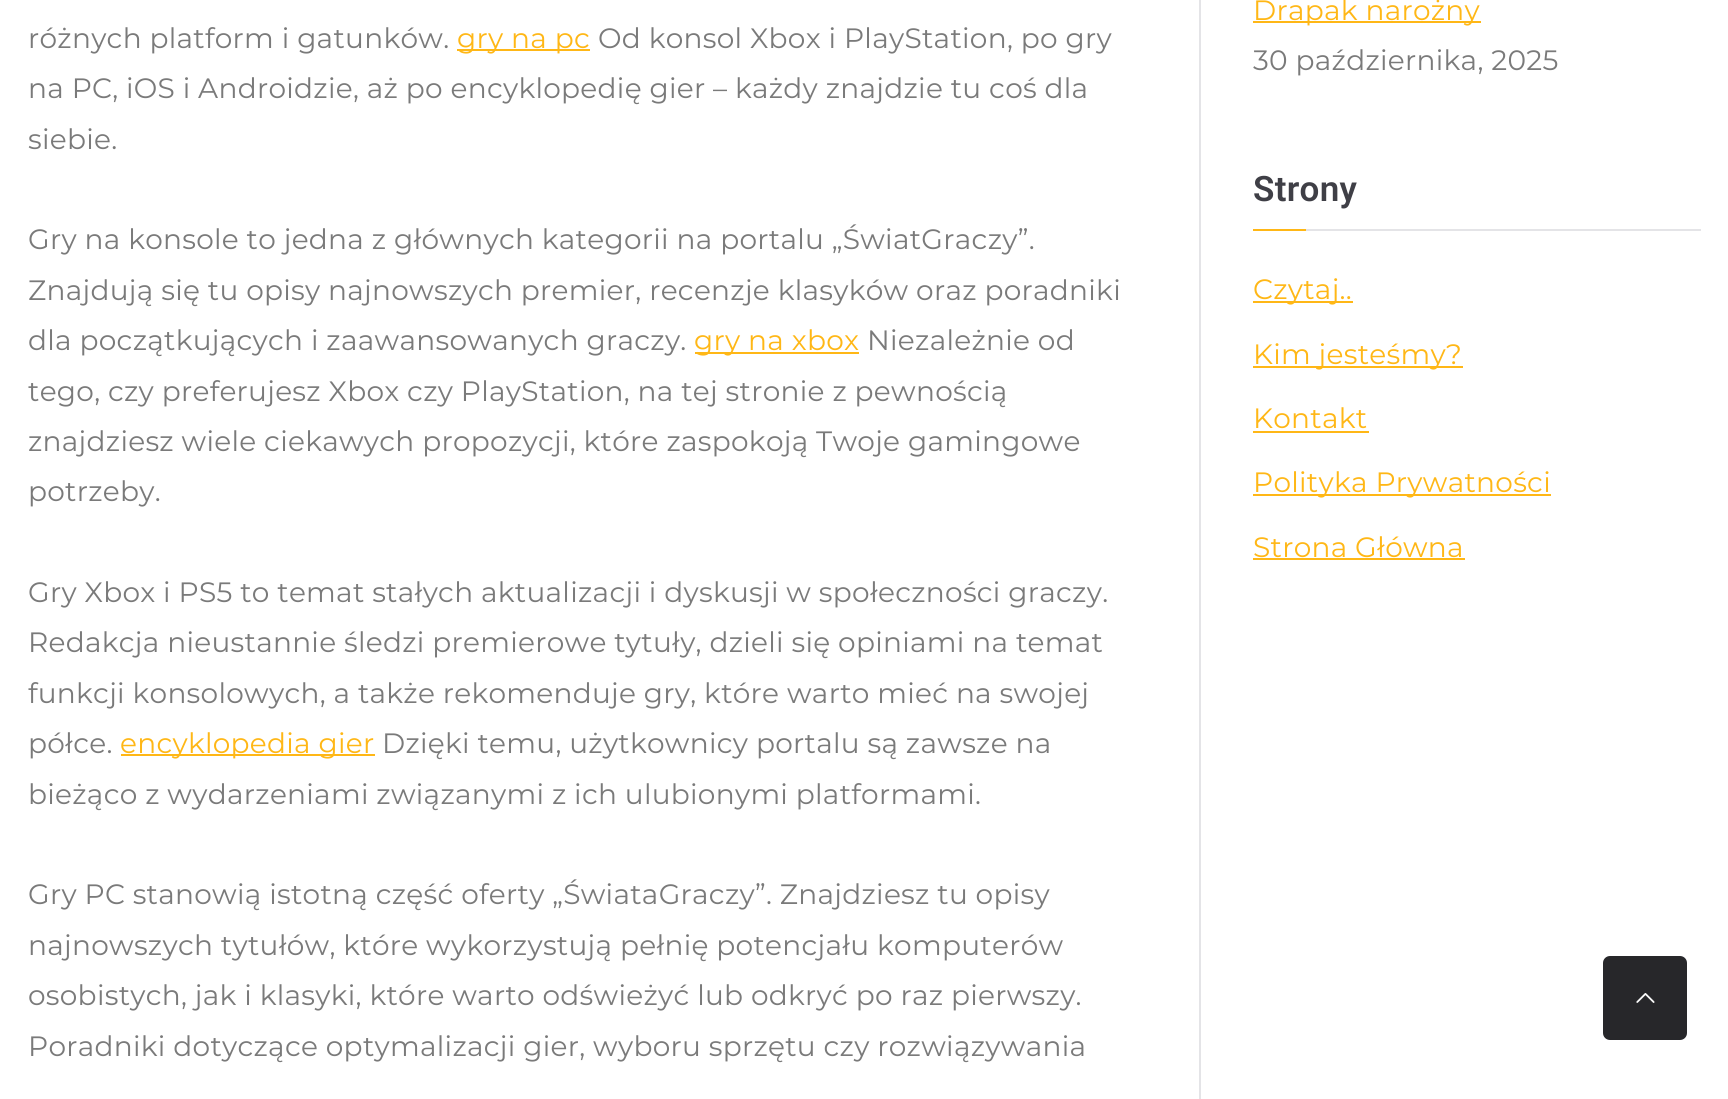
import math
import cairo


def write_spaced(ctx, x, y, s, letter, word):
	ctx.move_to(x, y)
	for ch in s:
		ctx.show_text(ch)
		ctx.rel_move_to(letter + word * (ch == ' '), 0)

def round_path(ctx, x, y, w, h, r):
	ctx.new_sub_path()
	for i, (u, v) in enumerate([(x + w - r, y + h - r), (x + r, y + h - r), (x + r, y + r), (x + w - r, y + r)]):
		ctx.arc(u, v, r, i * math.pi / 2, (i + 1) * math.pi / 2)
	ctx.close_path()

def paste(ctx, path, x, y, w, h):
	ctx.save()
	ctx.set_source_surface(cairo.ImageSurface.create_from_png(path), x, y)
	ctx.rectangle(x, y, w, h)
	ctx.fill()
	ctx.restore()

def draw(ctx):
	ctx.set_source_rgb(1, 1, 1)
	ctx.paint()
	ctx.select_font_face('Montserrat Thin')
	ctx.set_font_size(28)
	ctx.set_source_rgb(0.478, 0.478, 0.478)
	write_spaced(ctx, 28, 48, 'różnych platform i gatunków.', 0.28, 0)
	ctx.set_source_rgb(1, 0.718, 0.086)
	ctx.rectangle(457, 49, 133, 2)
	ctx.fill()
	write_spaced(ctx, 457, 48, 'gry na pc', 0.28, 0)
	ctx.set_source_rgb(0.478, 0.478, 0.478)
	for x, y, s in [
		(598, 48, 'Od konsol Xbox i PlayStation, po gry'),
		(28, 98, 'na PC, iOS i Androidzie, aż po encyklopedię gier – każdy znajdzie tu coś dla'),
		(28, 149, 'siebie.'),
		(28, 249, 'Gry na konsole to jedna z głównych kategorii na portalu „ŚwiatGraczy”.'),
		(28, 300, 'Znajdują się tu opisy najnowszych premier, recenzje klasyków oraz poradniki'),
		(28, 350, 'dla początkujących i zaawansowanych graczy.'),
	]:
		write_spaced(ctx, x, y, s, 0.28, 0)
	ctx.set_source_rgb(1, 0.718, 0.086)
	ctx.rectangle(695, 352, 164, 2)
	ctx.fill()
	write_spaced(ctx, 694, 350, 'gry na xbox', 0.28, 0)
	ctx.set_source_rgb(0.478, 0.478, 0.478)
	for x, y, s in [
		(867, 350, 'Niezależnie od'),
		(28, 401, 'tego, czy preferujesz Xbox czy PlayStation, na tej stronie z pewnością'),
		(28, 451, 'znajdziesz wiele ciekawych propozycji, które zaspokoją Twoje gamingowe'),
		(28, 501, 'potrzeby.'),
		(28, 602, 'Gry Xbox i PS5 to temat stałych aktualizacji i dyskusji w społeczności graczy.'),
		(28, 652, 'Redakcja nieustannie śledzi premierowe tytuły, dzieli się opiniami na temat'),
		(28, 703, 'funkcji konsolowych, a także rekomenduje gry, które warto mieć na swojej'),
		(28, 753, 'półce.'),
	]:
		write_spaced(ctx, x, y, s, 0.28, 0)
	ctx.set_source_rgb(1, 0.718, 0.086)
	ctx.rectangle(121, 754, 254, 2)
	ctx.fill()
	write_spaced(ctx, 120, 753, 'encyklopedia gier', 0.28, 0)
	ctx.set_source_rgb(0.478, 0.478, 0.478)
	for x, y, s in [
		(382, 753, 'Dzięki temu, użytkownicy portalu są zawsze na'),
		(28, 804, 'bieżąco z wydarzeniami związanymi z ich ulubionymi platformami.'),
		(28, 904, 'Gry PC stanowią istotną część oferty „ŚwiataGraczy”. Znajdziesz tu opisy'),
		(28, 955, 'najnowszych tytułów, które wykorzystują pełnię potencjału komputerów'),
		(28, 1005, 'osobistych, jak i klasyki, które warto odświeżyć lub odkryć po raz pierwszy.'),
		(28, 1056, 'Poradniki dotyczące optymalizacji gier, wyboru sprzętu czy rozwiązywania'),
	]:
		write_spaced(ctx, x, y, s, 0.28, 0)
	ctx.set_source_rgb(0.894, 0.894, 0.906)
	ctx.rectangle(1199, 0, 2, 1099)
	ctx.fill()
	ctx.set_source_rgb(1, 0.718, 0.086)
	ctx.rectangle(1253, 21, 228, 2)
	ctx.fill()
	write_spaced(ctx, 1253, 20, 'Drapak narożny', 0.28, 0)
	ctx.set_source_rgb(0.478, 0.478, 0.478)
	write_spaced(ctx, 1253, 70, '30 października, 2025', 0.28, 0)
	ctx.set_source_rgb(0.894, 0.894, 0.906)
	ctx.rectangle(1306, 229, 395, 2)
	ctx.fill()
	ctx.select_font_face('Roboto SemiBold')
	ctx.set_font_size(35)
	ctx.set_source_rgb(0.247, 0.247, 0.275)
	write_spaced(ctx, 1253, 201, 'Strony', 0.28, 0)
	ctx.set_source_rgb(1, 0.718, 0.086)
	ctx.rectangle(1253, 229, 53, 2)
	ctx.fill()
	ctx.rectangle(1253, 301, 100, 2)
	ctx.fill()
	ctx.select_font_face('Montserrat Thin')
	ctx.set_font_size(28)
	write_spaced(ctx, 1253, 299, 'Czytaj..', 0.28, 0)
	ctx.rectangle(1253, 366, 210, 2)
	ctx.fill()
	write_spaced(ctx, 1253, 364, 'Kim jesteśmy?', 0.28, 0)
	write_spaced(ctx, 1253, 428, 'Kontakt', 0.28, 0)
	ctx.rectangle(1253, 431, 116, 2)
	ctx.fill()
	ctx.rectangle(1253, 494, 298, 2)
	ctx.fill()
	write_spaced(ctx, 1253, 492, 'Polityka Prywatności', 0.28, 0)
	write_spaced(ctx, 1253, 557, 'Strona Główna', 0.28, 0)
	ctx.rectangle(1253, 558, 212, 2)
	ctx.fill()
	ctx.set_source_rgb(0.153, 0.153, 0.165)
	round_path(ctx, 1603, 956, 84, 84, 7)
	ctx.fill()
	paste(ctx, 'media/1.png', 1636, 993, 19, 10)


surface = cairo.ImageSurface(cairo.FORMAT_RGB24, 1728, 1099)
ctx = cairo.Context(surface)
options = cairo.FontOptions()
options.set_hint_metrics(cairo.HINT_METRICS_OFF)
options.set_hint_style(cairo.HINT_STYLE_NONE)
ctx.set_font_options(options)
ctx.set_miter_limit(4)
draw(ctx)
surface.write_to_png('image.png')
